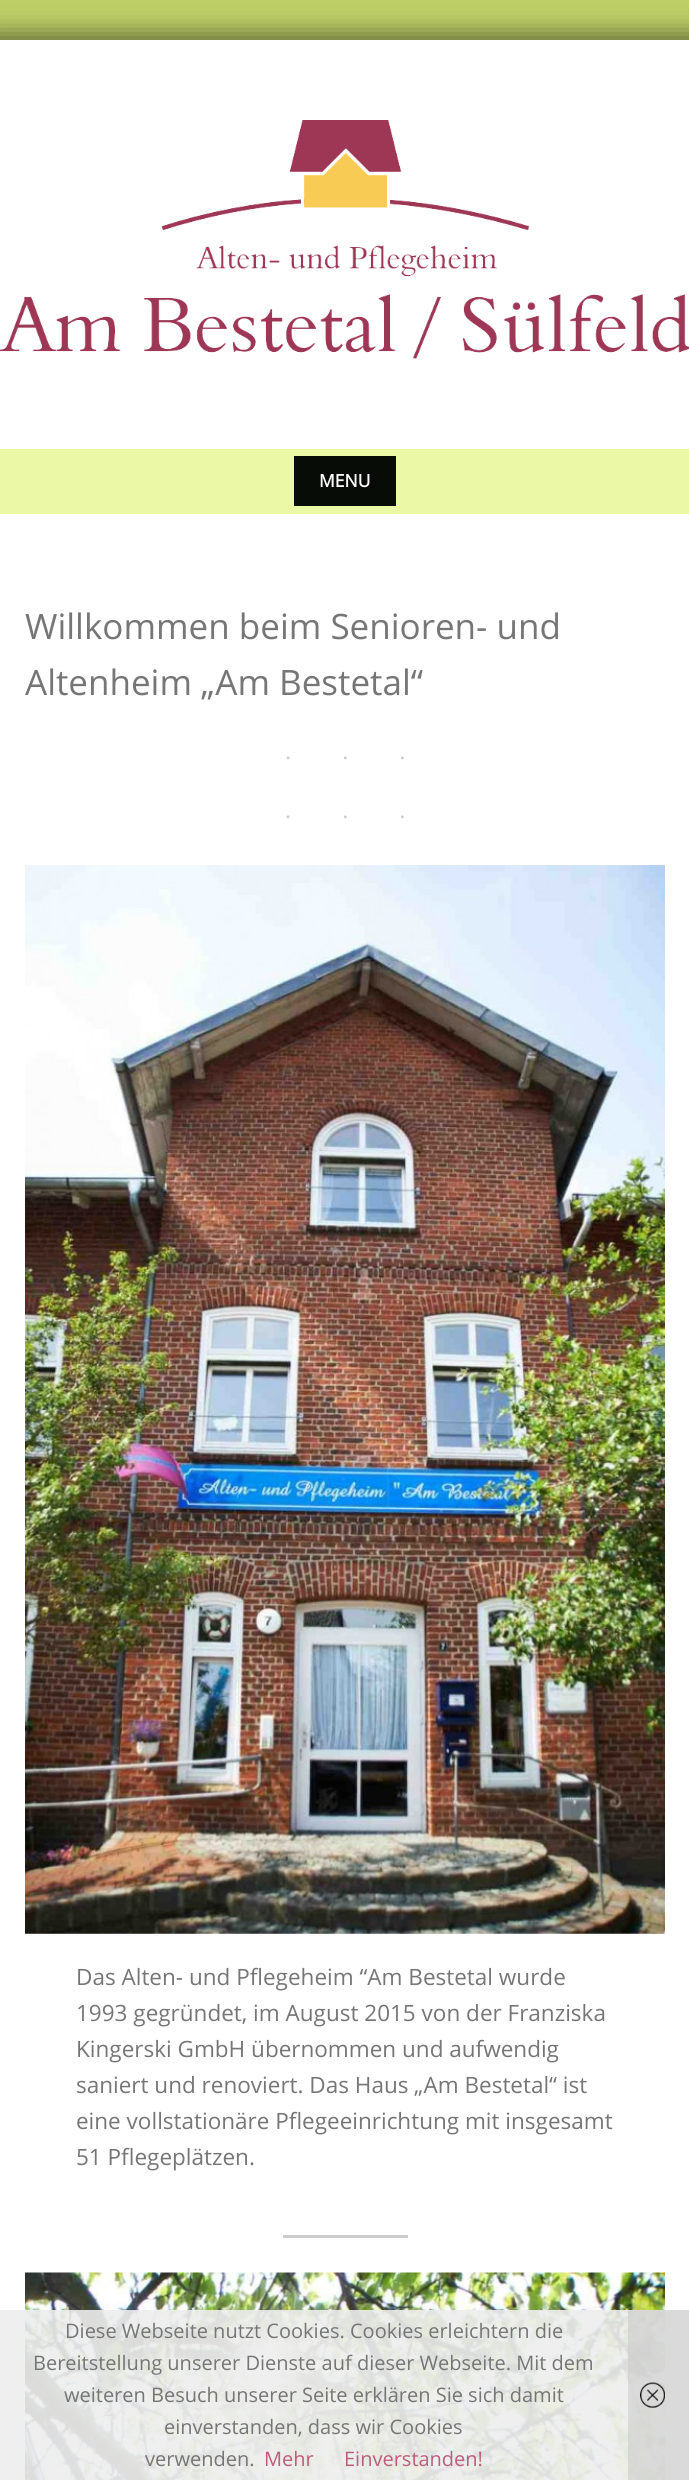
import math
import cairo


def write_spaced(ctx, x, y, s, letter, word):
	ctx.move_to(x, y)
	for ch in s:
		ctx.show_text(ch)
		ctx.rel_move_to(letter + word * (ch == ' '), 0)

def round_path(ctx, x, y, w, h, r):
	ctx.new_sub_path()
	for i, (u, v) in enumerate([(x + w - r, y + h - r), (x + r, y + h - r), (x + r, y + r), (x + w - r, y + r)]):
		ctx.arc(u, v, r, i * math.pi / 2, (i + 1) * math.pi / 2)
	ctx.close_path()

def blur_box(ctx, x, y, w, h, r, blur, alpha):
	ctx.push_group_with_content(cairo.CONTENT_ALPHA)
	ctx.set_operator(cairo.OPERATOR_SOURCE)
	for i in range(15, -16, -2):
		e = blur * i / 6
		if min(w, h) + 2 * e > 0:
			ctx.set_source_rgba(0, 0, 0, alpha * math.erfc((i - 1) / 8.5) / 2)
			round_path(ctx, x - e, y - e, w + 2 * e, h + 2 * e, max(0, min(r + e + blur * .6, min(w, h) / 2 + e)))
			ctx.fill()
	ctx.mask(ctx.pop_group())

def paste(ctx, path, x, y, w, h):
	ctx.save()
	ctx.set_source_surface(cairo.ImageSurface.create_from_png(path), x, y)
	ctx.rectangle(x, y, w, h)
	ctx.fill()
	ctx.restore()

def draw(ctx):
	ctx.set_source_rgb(0.745, 0.812, 0.404)
	ctx.paint()
	ctx.set_source_rgb(0, 0, 0)
	blur_box(ctx, -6, 34, 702, 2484, 0, 12.5, 0.5)
	ctx.set_source_rgb(1, 1, 1)
	ctx.rectangle(0, 40, 689, 409)
	ctx.fill()
	paste(ctx, 'media/1.png', 0, 120, 689, 239)
	ctx.set_source_rgb(0.918, 0.969, 0.647)
	ctx.rectangle(0, 449, 689, 65)
	ctx.fill()
	ctx.set_source_rgb(0.031, 0.051, 0.027)
	ctx.rectangle(294, 456, 102, 50)
	ctx.fill()
	ctx.select_font_face('Open Sans', cairo.FONT_SLANT_NORMAL, cairo.FONT_WEIGHT_BOLD)
	ctx.set_font_size(17.5)
	ctx.set_source_rgb(1, 1, 1)
	ctx.move_to(319, 487)
	ctx.show_text('MENU')
	ctx.rectangle(0, 514, 689, 1966)
	ctx.fill()
	ctx.select_font_face('Open Sans')
	ctx.set_font_size(35)
	ctx.set_source_rgb(0.463, 0.463, 0.463)
	ctx.move_to(25, 639)
	ctx.show_text('Willkommen beim Senioren- und')
	ctx.move_to(25, 695)
	ctx.show_text('Altenheim „Am Bestetal“')
	ctx.select_font_face('Liberation Serif')
	ctx.set_font_size(24.5)
	ctx.set_source_rgb(0.8, 0.8, 0.8)
	write_spaced(ctx, 284, 766, '···', 49, 0)
	write_spaced(ctx, 284, 825, '···', 49, 0)
	paste(ctx, 'media/2.png', 25, 865, 640, 1069)
	ctx.select_font_face('Open Sans')
	ctx.set_font_size(22.5)
	ctx.set_source_rgb(0.463, 0.463, 0.463)
	for x, y, s in [
		(76, 1985, 'Das Alten- und Pflegeheim “Am Bestetal wurde'),
		(76, 2021, '1993 gegründet, im August 2015 von der Franziska'),
		(76, 2057, 'Kingerski GmbH übernommen und aufwendig'),
		(76, 2093, 'saniert und renoviert. Das Haus „Am Bestetal“ ist'),
		(76, 2129, 'eine vollstationäre Pflegeeinrichtung mit insgesamt'),
		(76, 2165, '51 Pflegeplätzen.'),
	]:
		ctx.move_to(x, y)
		ctx.show_text(s)
	ctx.set_source_rgb(0.8, 0.8, 0.8)
	ctx.rectangle(283, 2235, 125, 3)
	ctx.fill()
	paste(ctx, 'media/3.png', 25, 2272, 640, 208)
	ctx.set_source_rgba(0.933, 0.933, 0.933, 0.9)
	ctx.rectangle(0, 2310, 689, 170)
	ctx.fill()
	ctx.set_font_size(20)
	ctx.set_source_rgb(0.463, 0.463, 0.463)
	for x, y, s in [
		(65, 2338, 'Diese Webseite nutzt Cookies. Cookies erleichtern die'),
		(33, 2370, 'Bereitstellung unserer Dienste auf dieser Webseite. Mit dem'),
		(64, 2402, 'weiteren Besuch unserer Seite erklären Sie sich damit'),
		(164, 2434, 'einverstanden, dass wir Cookies'),
		(145, 2466, 'verwenden.'),
	]:
		ctx.move_to(x, y)
		ctx.show_text(s)
	ctx.set_source_rgb(0.741, 0.369, 0.486)
	ctx.move_to(264, 2466)
	ctx.show_text('Mehr')
	ctx.move_to(344, 2466)
	ctx.show_text('Einverstanden!')
	ctx.set_source_rgba(0.8, 0.8, 0.8, 0.6)
	ctx.rectangle(628, 2310, 61, 170)
	ctx.fill()
	paste(ctx, 'media/4.png', 640, 2382, 25, 26)


surface = cairo.ImageSurface(cairo.FORMAT_RGB24, 689, 2480)
ctx = cairo.Context(surface)
options = cairo.FontOptions()
options.set_hint_metrics(cairo.HINT_METRICS_OFF)
options.set_hint_style(cairo.HINT_STYLE_NONE)
ctx.set_font_options(options)
ctx.set_miter_limit(4)
draw(ctx)
surface.write_to_png('image.png')
